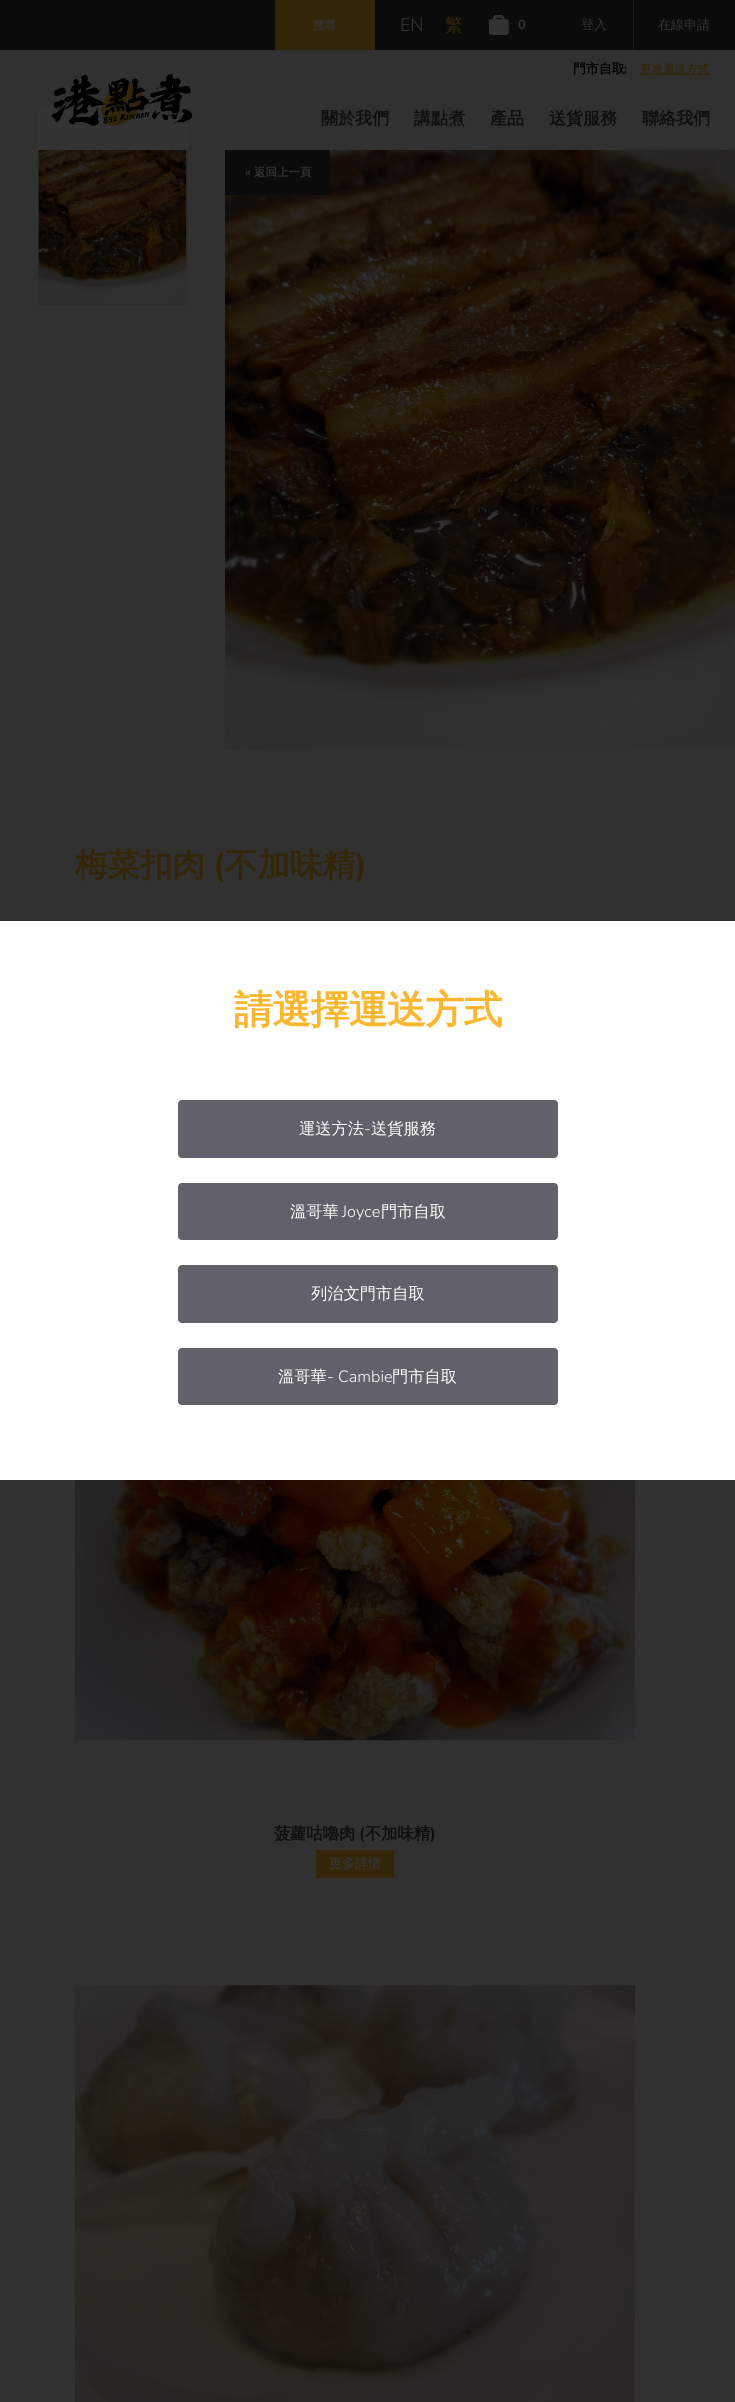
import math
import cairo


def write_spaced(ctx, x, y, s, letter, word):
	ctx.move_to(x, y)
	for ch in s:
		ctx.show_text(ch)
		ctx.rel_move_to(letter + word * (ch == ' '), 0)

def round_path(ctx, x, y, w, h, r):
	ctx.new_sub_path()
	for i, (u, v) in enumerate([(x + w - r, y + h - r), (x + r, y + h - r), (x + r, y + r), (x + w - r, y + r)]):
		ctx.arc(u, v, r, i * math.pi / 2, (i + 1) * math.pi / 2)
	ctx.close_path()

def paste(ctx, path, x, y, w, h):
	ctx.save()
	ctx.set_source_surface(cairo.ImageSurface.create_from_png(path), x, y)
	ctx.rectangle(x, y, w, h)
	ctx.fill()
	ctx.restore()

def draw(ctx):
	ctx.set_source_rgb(0.192, 0.192, 0.196)
	ctx.paint()
	ctx.rectangle(38.5, 106.5, 149, 198)
	ctx.set_source_rgb(0.173, 0.173, 0.173)
	ctx.set_line_width(1)
	ctx.stroke()
	ctx.set_source_rgb(0.2, 0.2, 0.2)
	ctx.rectangle(38, 106, 150, 44)
	ctx.fill()
	ctx.set_source_rgb(0.043, 0.043, 0.047)
	ctx.rectangle(0, 0, 735, 50)
	ctx.fill()
	ctx.set_source_rgb(0.2, 0.145, 0.035)
	ctx.rectangle(275, 0, 100, 50)
	ctx.fill()
	ctx.select_font_face('WenQuanYi Zen Hei', cairo.FONT_SLANT_NORMAL, cairo.FONT_WEIGHT_BOLD)
	ctx.set_font_size(11.5)
	ctx.set_source_rgb(0.2, 0.2, 0.2)
	ctx.move_to(313, 29)
	ctx.show_text('搜尋')
	ctx.select_font_face('Nunito Sans Light')
	ctx.set_font_size(18)
	ctx.move_to(400, 31)
	ctx.show_text('EN')
	ctx.select_font_face('WenQuanYi Zen Hei Medium')
	ctx.set_source_rgb(0.2, 0.145, 0.035)
	ctx.move_to(445, 31)
	ctx.show_text('繁')
	paste(ctx, 'media/1.png', 489, 15, 20, 20)
	ctx.select_font_face('Nunito Sans', cairo.FONT_SLANT_NORMAL, cairo.FONT_WEIGHT_BOLD)
	ctx.set_font_size(13)
	ctx.set_source_rgb(0.2, 0.2, 0.2)
	ctx.move_to(518, 29)
	ctx.show_text('0')
	ctx.select_font_face('WenQuanYi Zen Hei Medium')
	ctx.move_to(581, 29)
	ctx.show_text('登入')
	ctx.set_source_rgb(0.106, 0.106, 0.106)
	ctx.rectangle(633, 0, 1, 50)
	ctx.fill()
	ctx.set_source_rgb(0.2, 0.2, 0.2)
	ctx.move_to(658, 29)
	ctx.show_text('在線申請')
	paste(ctx, 'media/2.png', 51, 73, 142, 54)
	ctx.select_font_face('WenQuanYi Zen Hei', cairo.FONT_SLANT_NORMAL, cairo.FONT_WEIGHT_BOLD)
	ctx.set_source_rgb(0, 0, 0)
	ctx.move_to(573, 73)
	ctx.show_text('門市自取')
	ctx.select_font_face('Nunito Sans', cairo.FONT_SLANT_NORMAL, cairo.FONT_WEIGHT_BOLD)
	ctx.move_to(624, 73)
	ctx.show_text(':')
	ctx.set_source_rgb(0.2, 0.145, 0.035)
	ctx.rectangle(640, 74, 70, 1)
	ctx.fill()
	ctx.select_font_face('WenQuanYi Zen Hei', cairo.FONT_SLANT_NORMAL, cairo.FONT_WEIGHT_BOLD)
	ctx.set_font_size(11.5)
	ctx.move_to(640, 73)
	ctx.show_text('更改運送方式')
	ctx.set_font_size(17)
	ctx.set_source_rgb(0.055, 0.055, 0.055)
	for x, y, s in [
		(321, 124, '關於我們'),
		(414, 124, '講點煮'),
		(490, 124, '產品'),
		(549, 124, '送貨服務'),
		(642, 124, '聯絡我們'),
	]:
		ctx.move_to(x, y)
		ctx.show_text(s)
	paste(ctx, 'media/3.png', 38, 150, 149, 154)
	paste(ctx, 'media/4.png', 225, 150, 510, 599)
	ctx.set_source_rgb(0.043, 0.043, 0.047)
	ctx.rectangle(225, 150, 105, 45)
	ctx.fill()
	ctx.select_font_face('Nunito Sans', cairo.FONT_SLANT_NORMAL, cairo.FONT_WEIGHT_BOLD)
	ctx.set_font_size(11.5)
	ctx.set_source_rgb(0.2, 0.2, 0.2)
	ctx.move_to(245, 176)
	ctx.show_text('«')
	ctx.select_font_face('WenQuanYi Zen Hei', cairo.FONT_SLANT_NORMAL, cairo.FONT_WEIGHT_BOLD)
	ctx.move_to(254, 176)
	ctx.show_text('返回上一頁')
	ctx.set_font_size(32.5)
	ctx.set_source_rgb(0.2, 0.145, 0.035)
	ctx.move_to(75, 876)
	ctx.show_text('梅菜扣肉')
	ctx.select_font_face('Nunito Sans', cairo.FONT_SLANT_NORMAL, cairo.FONT_WEIGHT_BOLD)
	ctx.move_to(213, 876)
	ctx.show_text('(')
	ctx.select_font_face('WenQuanYi Zen Hei', cairo.FONT_SLANT_NORMAL, cairo.FONT_WEIGHT_BOLD)
	ctx.move_to(225, 876)
	ctx.show_text('不加味精')
	ctx.select_font_face('Nunito Sans', cairo.FONT_SLANT_NORMAL, cairo.FONT_WEIGHT_BOLD)
	ctx.move_to(355, 876)
	ctx.show_text(')')
	paste(ctx, 'media/5.png', 75, 1480, 560, 261)
	ctx.select_font_face('WenQuanYi Zen Hei', cairo.FONT_SLANT_NORMAL, cairo.FONT_WEIGHT_BOLD)
	ctx.set_font_size(16.25)
	ctx.set_source_rgb(0.055, 0.055, 0.055)
	ctx.move_to(274, 1839)
	ctx.show_text('菠蘿咕嚕肉')
	ctx.select_font_face('Nunito Sans', cairo.FONT_SLANT_NORMAL, cairo.FONT_WEIGHT_BOLD)
	ctx.move_to(359, 1839)
	ctx.show_text('(')
	ctx.select_font_face('WenQuanYi Zen Hei', cairo.FONT_SLANT_NORMAL, cairo.FONT_WEIGHT_BOLD)
	ctx.move_to(365, 1839)
	ctx.show_text('不加味精')
	ctx.select_font_face('Nunito Sans', cairo.FONT_SLANT_NORMAL, cairo.FONT_WEIGHT_BOLD)
	ctx.move_to(430, 1839)
	ctx.show_text(')')
	ctx.set_source_rgb(0.2, 0.145, 0.035)
	ctx.rectangle(316, 1850, 78, 28)
	ctx.fill()
	ctx.select_font_face('WenQuanYi Zen Hei', cairo.FONT_SLANT_NORMAL, cairo.FONT_WEIGHT_BOLD)
	ctx.set_font_size(13)
	ctx.set_source_rgb(0.2, 0.2, 0.2)
	ctx.move_to(329, 1868)
	ctx.show_text('更多詳情')
	paste(ctx, 'media/6.png', 75, 1985, 560, 417)
	ctx.set_source_rgb(1, 1, 1)
	ctx.rectangle(0, 921, 735, 559)
	ctx.fill()
	ctx.set_font_size(39)
	ctx.set_source_rgb(0.992, 0.718, 0.18)
	write_spaced(ctx, 234, 1023, '請選擇運送方式', -0.75, 0)
	ctx.set_source_rgb(0.376, 0.38, 0.416)
	round_path(ctx, 178, 1100, 380, 58, 4)
	ctx.fill()
	ctx.select_font_face('WenQuanYi Zen Hei Medium')
	ctx.set_font_size(16.25)
	ctx.set_source_rgb(1, 1, 1)
	ctx.move_to(299, 1134)
	ctx.show_text('運送方法')
	ctx.select_font_face('Nunito Sans Light')
	ctx.move_to(364, 1134)
	ctx.show_text('-')
	ctx.select_font_face('WenQuanYi Zen Hei Medium')
	ctx.move_to(371, 1134)
	ctx.show_text('送貨服務')
	ctx.set_source_rgb(0.376, 0.38, 0.416)
	round_path(ctx, 178, 1183, 380, 57, 4)
	ctx.fill()
	ctx.set_source_rgb(1, 1, 1)
	ctx.move_to(290, 1217)
	ctx.show_text('溫哥華')
	ctx.select_font_face('Nunito Sans Light')
	ctx.move_to(342, 1217)
	ctx.show_text('Joyce')
	ctx.select_font_face('WenQuanYi Zen Hei Medium')
	ctx.move_to(381, 1217)
	ctx.show_text('門市自取')
	ctx.set_source_rgb(0.376, 0.38, 0.416)
	round_path(ctx, 178, 1265, 380, 58, 4)
	ctx.fill()
	ctx.set_source_rgb(1, 1, 1)
	ctx.move_to(311, 1299)
	ctx.show_text('列治文門市自取')
	ctx.set_source_rgb(0.376, 0.38, 0.416)
	round_path(ctx, 178, 1348, 380, 57, 4)
	ctx.fill()
	ctx.set_source_rgb(1, 1, 1)
	ctx.move_to(278, 1382)
	ctx.show_text('溫哥華')
	ctx.select_font_face('Nunito Sans Light')
	ctx.move_to(327, 1382)
	ctx.show_text('- Cambie')
	ctx.select_font_face('WenQuanYi Zen Hei Medium')
	ctx.move_to(392, 1382)
	ctx.show_text('門市自取')


surface = cairo.ImageSurface(cairo.FORMAT_RGB24, 735, 2402)
ctx = cairo.Context(surface)
options = cairo.FontOptions()
options.set_hint_metrics(cairo.HINT_METRICS_OFF)
options.set_hint_style(cairo.HINT_STYLE_NONE)
ctx.set_font_options(options)
ctx.set_miter_limit(4)
draw(ctx)
surface.write_to_png('image.png')
